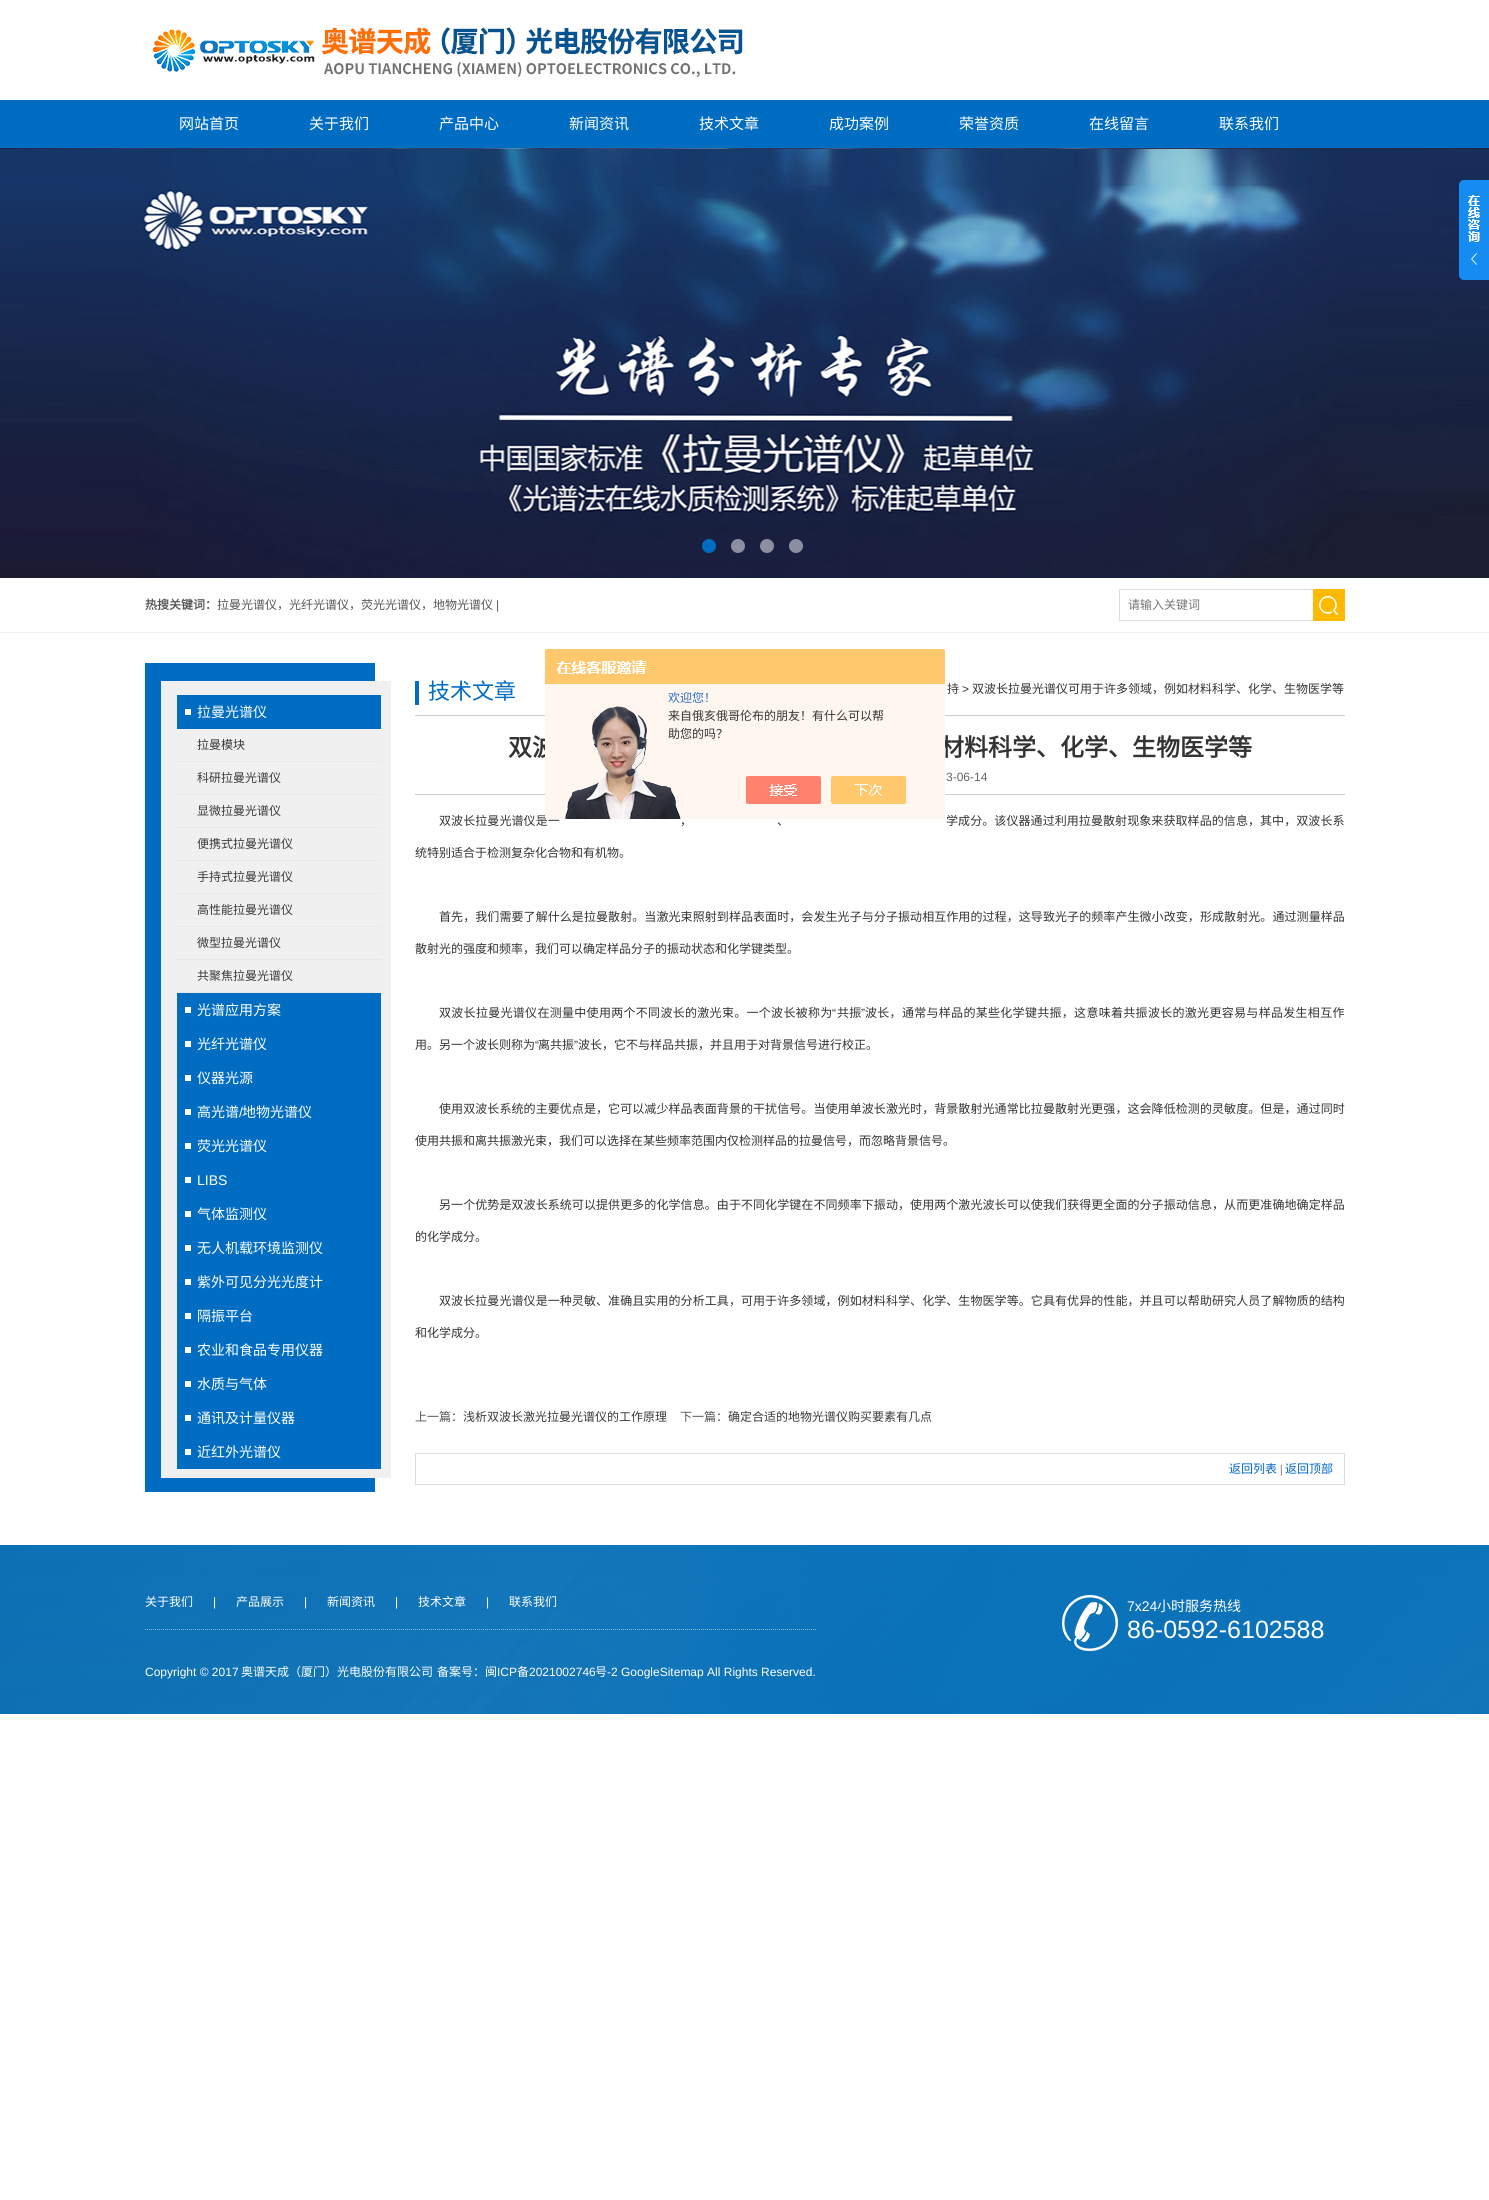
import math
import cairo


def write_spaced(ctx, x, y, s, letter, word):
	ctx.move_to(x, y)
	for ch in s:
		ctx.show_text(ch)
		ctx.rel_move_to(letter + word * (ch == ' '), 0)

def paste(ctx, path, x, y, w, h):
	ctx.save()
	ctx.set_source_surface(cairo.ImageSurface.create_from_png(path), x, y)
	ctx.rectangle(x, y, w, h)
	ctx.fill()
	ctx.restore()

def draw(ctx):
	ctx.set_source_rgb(1, 1, 1)
	ctx.paint()
	paste(ctx, 'media/1.png', 153, 25, 590, 52)
	ctx.set_source_rgb(0, 0.427, 0.761)
	ctx.rectangle(0, 100, 1489, 48)
	ctx.fill()
	ctx.select_font_face('Noto Sans CJK SC')
	ctx.set_font_size(15)
	ctx.set_source_rgb(1, 1, 1)
	for x, y, s in [
		(179, 129, '网站首页'),
		(309, 129, '关于我们'),
		(439, 129, '产品中心'),
		(569, 129, '新闻资讯'),
		(699, 129, '技术文章'),
		(829, 129, '成功案例'),
		(959, 129, '荣誉资质'),
		(1089, 129, '在线留言'),
		(1219, 129, '联系我们'),
	]:
		ctx.move_to(x, y)
		ctx.show_text(s)
	paste(ctx, 'media/2.png', 0, 148, 1489, 430)
	ctx.set_source_rgb(0, 0.427, 0.761)
	ctx.arc(709, 546, 7, 0, 2 * math.pi)
	ctx.fill()
	ctx.set_source_rgb(0.549, 0.561, 0.624)
	ctx.arc(738, 546, 7, 0, 2 * math.pi)
	ctx.fill()
	ctx.arc(767, 546, 7, 0, 2 * math.pi)
	ctx.fill()
	ctx.arc(796, 546, 7, 0, 2 * math.pi)
	ctx.fill()
	paste(ctx, 'media/3.png', 1459, 180, 30, 100)
	ctx.set_source_rgb(0.933, 0.933, 0.933)
	ctx.rectangle(0, 632, 1489, 1)
	ctx.fill()
	ctx.select_font_face('Noto Sans CJK SC', cairo.FONT_SLANT_NORMAL, cairo.FONT_WEIGHT_BOLD)
	ctx.set_font_size(12)
	ctx.set_source_rgb(0.333, 0.333, 0.333)
	ctx.move_to(145, 609)
	ctx.show_text('热搜关键词：')
	ctx.select_font_face('Noto Sans CJK SC')
	ctx.move_to(217, 609)
	ctx.show_text('拉曼光谱仪，光纤光谱仪，荧光光谱仪，地物光谱仪')
	ctx.select_font_face('Liberation Sans')
	ctx.move_to(496, 609)
	ctx.show_text('|')
	ctx.rectangle(1119.5, 589.5, 194, 31)
	ctx.set_source_rgb(0.871, 0.871, 0.871)
	ctx.set_line_width(1)
	ctx.stroke()
	ctx.select_font_face('Noto Sans CJK SC')
	ctx.set_source_rgb(0.459, 0.459, 0.459)
	ctx.move_to(1128, 609)
	ctx.show_text('请输入关键词')
	paste(ctx, 'media/4.png', 1313, 589, 32, 32)
	paste(ctx, 'media/5.png', 145, 663, 246, 829)
	paste(ctx, 'media/6.png', 161, 663, 230, 24)
	ctx.set_source_rgb(0, 0.427, 0.761)
	ctx.rectangle(177, 695, 204, 34)
	ctx.fill()
	ctx.set_source_rgb(1, 1, 1)
	ctx.rectangle(185, 709, 6, 6)
	ctx.fill()
	ctx.set_font_size(14)
	ctx.move_to(197, 717)
	ctx.show_text('拉曼光谱仪')
	ctx.new_path()
	ctx.move_to(177, 761.5)
	ctx.line_to(381, 761.5)
	ctx.set_source_rgb(0.871, 0.871, 0.871)
	ctx.set_dash([1, 1])
	ctx.stroke()
	ctx.set_font_size(12)
	ctx.set_source_rgb(0.227, 0.227, 0.227)
	ctx.move_to(197, 749)
	ctx.show_text('拉曼模块')
	ctx.new_path()
	ctx.move_to(177, 794.5)
	ctx.line_to(381, 794.5)
	ctx.set_source_rgb(0.871, 0.871, 0.871)
	ctx.stroke()
	ctx.set_source_rgb(0.227, 0.227, 0.227)
	ctx.move_to(197, 782)
	ctx.show_text('科研拉曼光谱仪')
	ctx.new_path()
	ctx.move_to(177, 827.5)
	ctx.line_to(381, 827.5)
	ctx.set_source_rgb(0.871, 0.871, 0.871)
	ctx.stroke()
	ctx.set_source_rgb(0.227, 0.227, 0.227)
	ctx.move_to(197, 815)
	ctx.show_text('显微拉曼光谱仪')
	ctx.new_path()
	ctx.move_to(177, 860.5)
	ctx.line_to(381, 860.5)
	ctx.set_source_rgb(0.871, 0.871, 0.871)
	ctx.stroke()
	ctx.set_source_rgb(0.227, 0.227, 0.227)
	ctx.move_to(197, 848)
	ctx.show_text('便携式拉曼光谱仪')
	ctx.new_path()
	ctx.move_to(177, 893.5)
	ctx.line_to(381, 893.5)
	ctx.set_source_rgb(0.871, 0.871, 0.871)
	ctx.stroke()
	ctx.set_source_rgb(0.227, 0.227, 0.227)
	ctx.move_to(197, 881)
	ctx.show_text('手持式拉曼光谱仪')
	ctx.new_path()
	ctx.move_to(177, 926.5)
	ctx.line_to(381, 926.5)
	ctx.set_source_rgb(0.871, 0.871, 0.871)
	ctx.stroke()
	ctx.set_source_rgb(0.227, 0.227, 0.227)
	ctx.move_to(197, 914)
	ctx.show_text('高性能拉曼光谱仪')
	ctx.new_path()
	ctx.move_to(177, 959.5)
	ctx.line_to(381, 959.5)
	ctx.set_source_rgb(0.871, 0.871, 0.871)
	ctx.stroke()
	ctx.set_source_rgb(0.227, 0.227, 0.227)
	ctx.move_to(197, 947)
	ctx.show_text('微型拉曼光谱仪')
	ctx.new_path()
	ctx.move_to(177, 992.5)
	ctx.line_to(381, 992.5)
	ctx.set_source_rgb(0.871, 0.871, 0.871)
	ctx.stroke()
	ctx.set_source_rgb(0.227, 0.227, 0.227)
	ctx.move_to(197, 980)
	ctx.show_text('共聚焦拉曼光谱仪')
	ctx.set_source_rgb(0, 0.427, 0.761)
	ctx.rectangle(177, 993, 204, 476)
	ctx.fill()
	ctx.set_source_rgb(1, 1, 1)
	ctx.rectangle(185, 1007, 6, 6)
	ctx.fill()
	ctx.set_font_size(14)
	ctx.move_to(197, 1015)
	ctx.show_text('光谱应用方案')
	ctx.rectangle(185, 1041, 6, 6)
	ctx.fill()
	ctx.move_to(197, 1049)
	ctx.show_text('光纤光谱仪')
	ctx.rectangle(185, 1075, 6, 6)
	ctx.fill()
	ctx.move_to(197, 1083)
	ctx.show_text('仪器光源')
	ctx.rectangle(185, 1109, 6, 6)
	ctx.fill()
	ctx.move_to(197, 1117)
	ctx.show_text('高光谱')
	ctx.select_font_face('Liberation Sans')
	ctx.move_to(239, 1117)
	ctx.show_text('/')
	ctx.select_font_face('Noto Sans CJK SC')
	ctx.move_to(242, 1117)
	ctx.show_text('地物光谱仪')
	ctx.rectangle(185, 1143, 6, 6)
	ctx.fill()
	ctx.move_to(197, 1151)
	ctx.show_text('荧光光谱仪')
	ctx.rectangle(185, 1177, 6, 6)
	ctx.fill()
	ctx.select_font_face('Liberation Sans')
	ctx.move_to(197, 1185)
	ctx.show_text('LIBS')
	ctx.rectangle(185, 1211, 6, 6)
	ctx.fill()
	ctx.select_font_face('Noto Sans CJK SC')
	ctx.move_to(197, 1219)
	ctx.show_text('气体监测仪')
	ctx.rectangle(185, 1245, 6, 6)
	ctx.fill()
	ctx.move_to(197, 1253)
	ctx.show_text('无人机载环境监测仪')
	ctx.rectangle(185, 1279, 6, 6)
	ctx.fill()
	ctx.move_to(197, 1287)
	ctx.show_text('紫外可见分光光度计')
	ctx.rectangle(185, 1313, 6, 6)
	ctx.fill()
	ctx.move_to(197, 1321)
	ctx.show_text('隔振平台')
	ctx.rectangle(185, 1347, 6, 6)
	ctx.fill()
	ctx.move_to(197, 1355)
	ctx.show_text('农业和食品专用仪器')
	ctx.rectangle(185, 1381, 6, 6)
	ctx.fill()
	ctx.move_to(197, 1389)
	ctx.show_text('水质与气体')
	ctx.rectangle(185, 1415, 6, 6)
	ctx.fill()
	ctx.move_to(197, 1423)
	ctx.show_text('通讯及计量仪器')
	ctx.rectangle(185, 1449, 6, 6)
	ctx.fill()
	ctx.move_to(197, 1457)
	ctx.show_text('近红外光谱仪')
	paste(ctx, 'media/7.png', 161, 1477, 230, 15)
	ctx.set_source_rgb(0.8, 0.8, 0.8)
	ctx.rectangle(415, 715, 930, 1)
	ctx.fill()
	ctx.set_source_rgb(0, 0.427, 0.761)
	ctx.rectangle(415, 681, 4, 24)
	ctx.fill()
	ctx.set_font_size(22)
	ctx.move_to(428, 699)
	ctx.show_text('技术文章')
	ctx.set_font_size(12)
	ctx.set_source_rgb(0.227, 0.227, 0.227)
	ctx.move_to(947, 693)
	ctx.show_text('持')
	ctx.select_font_face('Liberation Sans')
	ctx.set_source_rgb(0.2, 0.2, 0.2)
	ctx.move_to(962, 693)
	ctx.show_text('>')
	ctx.select_font_face('Noto Sans CJK SC')
	ctx.move_to(972, 693)
	ctx.show_text('双波长拉曼光谱仪可用于许多领域，例如材料科学、化学、生物医学等')
	ctx.select_font_face('Noto Sans CJK SC', cairo.FONT_SLANT_NORMAL, cairo.FONT_WEIGHT_BOLD)
	ctx.set_font_size(24)
	ctx.move_to(508, 756)
	ctx.show_text('双波')
	ctx.move_to(940, 756)
	ctx.show_text('材料科学、化学、生物医学等')
	ctx.set_source_rgb(0.8, 0.8, 0.8)
	ctx.rectangle(415, 794, 930, 1)
	ctx.fill()
	ctx.select_font_face('Liberation Sans')
	ctx.set_font_size(12)
	ctx.set_source_rgb(0.4, 0.4, 0.4)
	ctx.move_to(946, 781)
	ctx.show_text('3-06-14')
	ctx.select_font_face('Noto Sans CJK SC')
	ctx.set_source_rgb(0.2, 0.2, 0.2)
	for x, y, s in [
		(439, 825, '双波长拉曼光谱仪是一'),
		(680, 825, '，'),
		(777, 825, '、'),
		(946, 825, '学成分。该仪器通过利用拉曼散射现象来获取样品的信息，其中，双波长系'),
	]:
		write_spaced(ctx, x, y, s, 0.08, 0)
	ctx.move_to(415, 857)
	ctx.show_text('统特别适合于检测复杂化合物和有机物。')
	write_spaced(ctx, 439, 921, '首先，我们需要了解什么是拉曼散射。当激光束照射到样品表面时，会发生光子与分子振动相互作用的过程，这导致光子的频率产生微小改变，形成散射光。通过测量样品', 0.08, 0)
	ctx.move_to(415, 953)
	ctx.show_text('散射光的强度和频率，我们可以确定样品分子的振动状态和化学键类型。')
	write_spaced(ctx, 439, 1017, '双波长拉曼光谱仪在测量中使用两个不同波长的激光束。一个波长被称为', 0.3, 0)
	ctx.select_font_face('Liberation Sans')
	write_spaced(ctx, 832, 1017, '“', 0.3, 0)
	ctx.select_font_face('Noto Sans CJK SC')
	write_spaced(ctx, 837, 1017, '共振', 0.3, 0)
	ctx.select_font_face('Liberation Sans')
	write_spaced(ctx, 861, 1017, '”', 0.3, 0)
	ctx.select_font_face('Noto Sans CJK SC')
	write_spaced(ctx, 865, 1017, '波长，通常与样品的某些化学键共振，这意味着共振波长的激光更容易与样品发生相互作', 0.3, 0)
	ctx.move_to(415, 1049)
	ctx.show_text('用。另一个波长则称为')
	ctx.select_font_face('Liberation Sans')
	ctx.move_to(535, 1049)
	ctx.show_text('“')
	ctx.select_font_face('Noto Sans CJK SC')
	ctx.move_to(538, 1049)
	ctx.show_text('离共振')
	ctx.select_font_face('Liberation Sans')
	ctx.move_to(574, 1049)
	ctx.show_text('”')
	ctx.select_font_face('Noto Sans CJK SC')
	ctx.move_to(578, 1049)
	ctx.show_text('波长，它不与样品共振，并且用于对背景信号进行校正。')
	write_spaced(ctx, 439, 1113, '使用双波长系统的主要优点是，它可以减少样品表面背景的干扰信号。当使用单波长激光时，背景散射光通常比拉曼散射光更强，这会降低检测的灵敏度。但是，通过同时', 0.08, 0)
	ctx.move_to(415, 1145)
	ctx.show_text('使用共振和离共振激光束，我们可以选择在某些频率范围内仅检测样品的拉曼信号，而忽略背景信号。')
	write_spaced(ctx, 439, 1209, '另一个优势是双波长系统可以提供更多的化学信息。由于不同化学键在不同频率下振动，使用两个激光波长可以使我们获得更全面的分子振动信息，从而更准确地确定样品', 0.08, 0)
	ctx.move_to(415, 1241)
	ctx.show_text('的化学成分。')
	write_spaced(ctx, 439, 1305, '双波长拉曼光谱仪是一种灵敏、准确且实用的分析工具，可用于许多领域，例如材料科学、化学、生物医学等。它具有优异的性能，并且可以帮助研究人员了解物质的结构', 0.08, 0)
	ctx.move_to(415, 1337)
	ctx.show_text('和化学成分。')
	ctx.set_source_rgb(0.333, 0.333, 0.333)
	ctx.move_to(415, 1421)
	ctx.show_text('上一篇：')
	ctx.set_source_rgb(0.227, 0.227, 0.227)
	ctx.move_to(463, 1421)
	ctx.show_text('浅析双波长激光拉曼光谱仪的工作原理')
	ctx.set_source_rgb(0.333, 0.333, 0.333)
	ctx.move_to(680, 1421)
	ctx.show_text('下一篇：')
	ctx.set_source_rgb(0.227, 0.227, 0.227)
	ctx.move_to(728, 1421)
	ctx.show_text('确定合适的地物光谱仪购买要素有几点')
	ctx.rectangle(415.5, 1453.5, 929, 31)
	ctx.set_source_rgb(0.867, 0.867, 0.867)
	ctx.set_dash([])
	ctx.stroke()
	ctx.set_source_rgb(0, 0.4, 0.8)
	ctx.move_to(1229, 1473)
	ctx.show_text('返回列表')
	ctx.select_font_face('Liberation Serif')
	ctx.set_source_rgb(0.2, 0.2, 0.2)
	ctx.move_to(1280, 1473)
	ctx.show_text('|')
	ctx.select_font_face('Noto Sans CJK SC')
	ctx.set_source_rgb(0, 0.4, 0.8)
	ctx.move_to(1285, 1473)
	ctx.show_text('返回顶部')
	paste(ctx, 'media/8.png', 545, 649, 400, 170)
	ctx.set_source_rgb(0.18, 0.431, 0.776)
	ctx.move_to(668, 702)
	ctx.show_text('欢迎您！')
	ctx.set_source_rgb(0.2, 0.2, 0.2)
	ctx.move_to(668, 720)
	ctx.show_text('来自俄亥俄哥伦布的朋友！有什么可以帮')
	ctx.move_to(668, 738)
	ctx.show_text('助您的吗？')
	ctx.set_source_rgb(0.031, 0.443, 0.725)
	ctx.rectangle(0, 1545, 1489, 169)
	ctx.fill()
	paste(ctx, 'media/9.png', 0, 1545, 1489, 169)
	ctx.new_path()
	ctx.move_to(145, 1629.5)
	ctx.line_to(816, 1629.5)
	ctx.set_source_rgb(0.537, 0.729, 0.878)
	ctx.set_dash([1, 1])
	ctx.stroke()
	ctx.set_source_rgb(1, 1, 1)
	ctx.move_to(145, 1606)
	ctx.show_text('关于我们')
	ctx.select_font_face('Liberation Sans')
	ctx.move_to(213, 1606)
	ctx.show_text('|')
	ctx.select_font_face('Noto Sans CJK SC')
	ctx.move_to(236, 1606)
	ctx.show_text('产品展示')
	ctx.select_font_face('Liberation Sans')
	ctx.move_to(304, 1606)
	ctx.show_text('|')
	ctx.select_font_face('Noto Sans CJK SC')
	ctx.move_to(327, 1606)
	ctx.show_text('新闻资讯')
	ctx.select_font_face('Liberation Sans')
	ctx.move_to(395, 1606)
	ctx.show_text('|')
	ctx.select_font_face('Noto Sans CJK SC')
	ctx.move_to(418, 1606)
	ctx.show_text('技术文章')
	ctx.select_font_face('Liberation Sans')
	ctx.move_to(486, 1606)
	ctx.show_text('|')
	ctx.select_font_face('Noto Sans CJK SC')
	ctx.move_to(509, 1606)
	ctx.show_text('联系我们')
	ctx.select_font_face('Liberation Sans')
	ctx.move_to(145, 1676)
	ctx.show_text('Copyright © 2017')
	ctx.select_font_face('Noto Sans CJK SC')
	ctx.move_to(241, 1676)
	ctx.show_text('奥谱天成（厦门）光电股份有限公司')
	ctx.move_to(437, 1676)
	ctx.show_text('备案号：闽')
	ctx.select_font_face('Liberation Sans')
	ctx.move_to(497, 1676)
	ctx.show_text('ICP')
	ctx.select_font_face('Noto Sans CJK SC')
	ctx.move_to(517, 1676)
	ctx.show_text('备')
	ctx.select_font_face('Liberation Sans')
	ctx.move_to(529, 1676)
	ctx.show_text('2021002746')
	ctx.select_font_face('Noto Sans CJK SC')
	ctx.move_to(595, 1676)
	ctx.show_text('号')
	ctx.select_font_face('Liberation Sans')
	ctx.move_to(607, 1676)
	ctx.show_text('-2 GoogleSitemap All Rights Reserved.')
	paste(ctx, 'media/10.png', 1062, 1595, 56, 56)
	ctx.set_font_size(14)
	ctx.move_to(1127, 1611)
	ctx.show_text('7x24')
	ctx.select_font_face('Noto Sans CJK SC')
	ctx.move_to(1157, 1611)
	ctx.show_text('小时服务热线')
	ctx.select_font_face('Liberation Sans')
	ctx.set_font_size(25)
	ctx.move_to(1127, 1638)
	ctx.show_text('86-0592-6102588')


surface = cairo.ImageSurface(cairo.FORMAT_RGB24, 1489, 2200)
ctx = cairo.Context(surface)
options = cairo.FontOptions()
options.set_hint_metrics(cairo.HINT_METRICS_OFF)
options.set_hint_style(cairo.HINT_STYLE_NONE)
ctx.set_font_options(options)
ctx.set_miter_limit(4)
draw(ctx)
surface.write_to_png('image.png')
